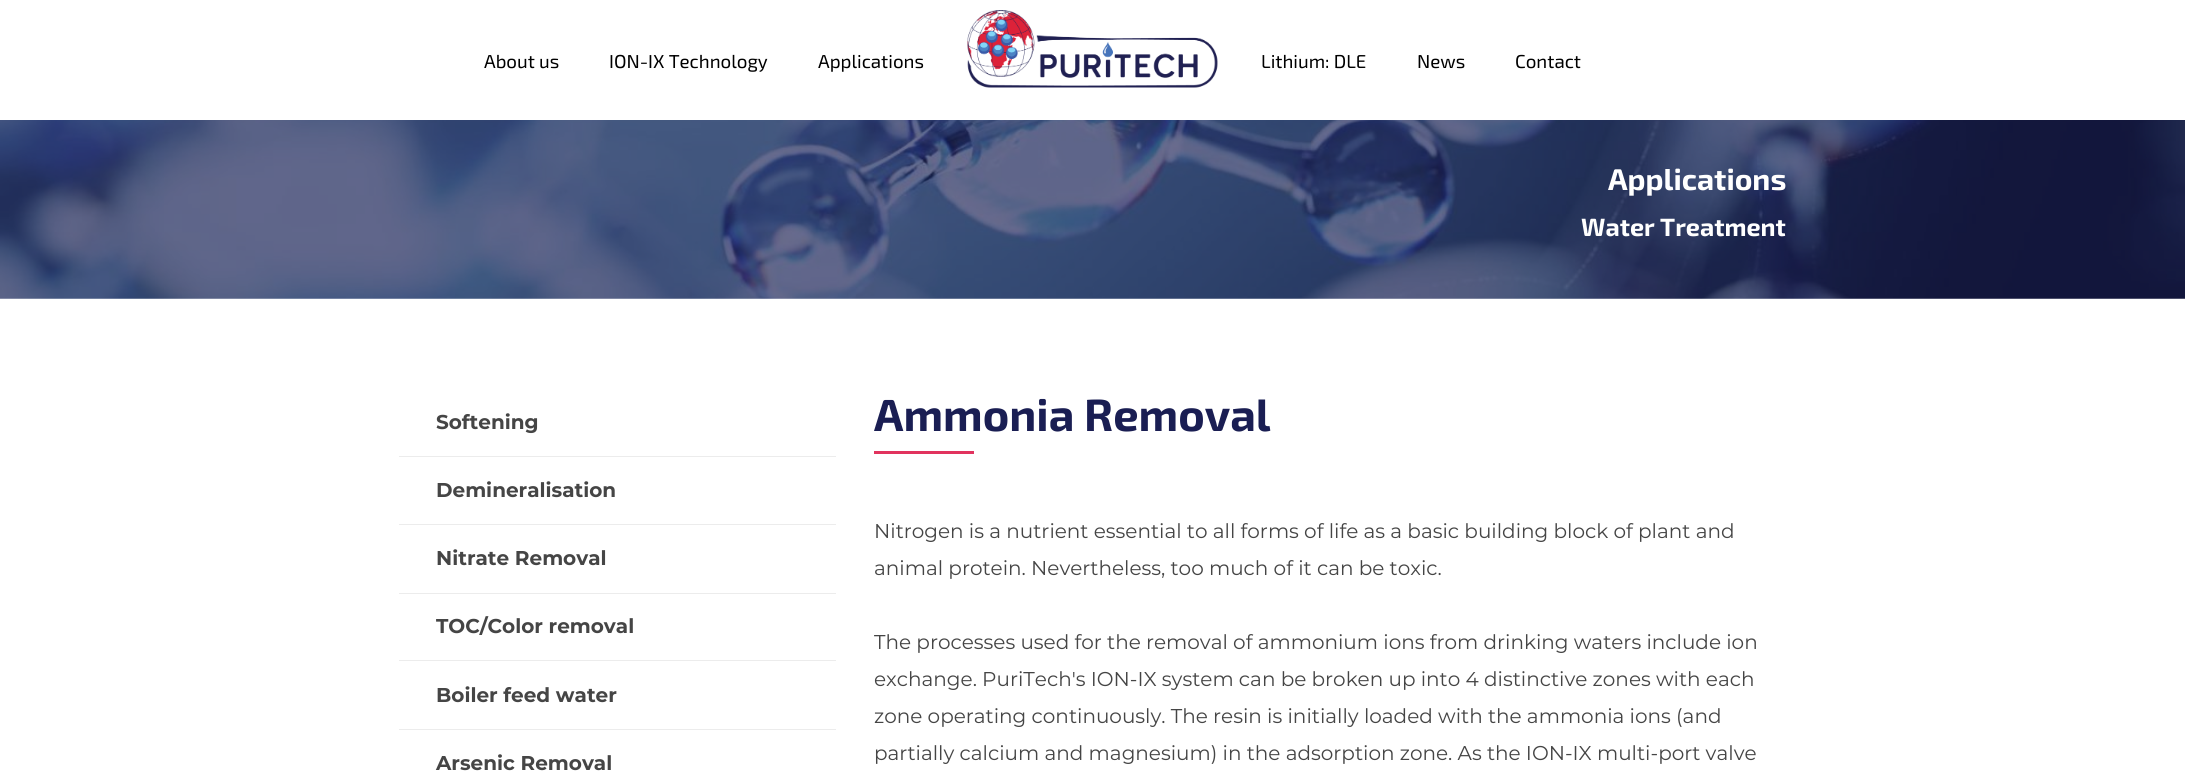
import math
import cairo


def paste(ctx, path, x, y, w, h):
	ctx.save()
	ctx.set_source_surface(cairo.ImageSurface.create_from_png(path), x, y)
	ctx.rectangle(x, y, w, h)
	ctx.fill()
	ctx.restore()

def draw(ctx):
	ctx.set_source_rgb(1, 1, 1)
	ctx.paint()
	ctx.select_font_face('Exo 2')
	ctx.set_font_size(18.75)
	ctx.set_source_rgb(0, 0, 0)
	for x, y, s in [
		(484, 68, 'About us'),
		(609, 68, 'ION-IX Technology'),
		(818, 68, 'Applications'),
	]:
		ctx.move_to(x, y)
		ctx.show_text(s)
	paste(ctx, 'media/1.png', 967, 10, 251, 78)
	for x, y, s in [
		(1261, 68, 'Lithium: DLE'),
		(1417, 68, 'News'),
		(1515, 68, 'Contact'),
	]:
		ctx.move_to(x, y)
		ctx.show_text(s)
	paste(ctx, 'media/2.png', 0, 120, 2185, 179)
	ctx.select_font_face('Exo 2', cairo.FONT_SLANT_NORMAL, cairo.FONT_WEIGHT_BOLD)
	ctx.set_font_size(30)
	ctx.set_source_rgb(1, 1, 1)
	ctx.move_to(1608, 190)
	ctx.show_text('Applications')
	ctx.set_font_size(25)
	ctx.move_to(1581, 236)
	ctx.show_text('Water Treatment')
	ctx.set_source_rgb(0.922, 0.922, 0.922)
	ctx.rectangle(399, 456, 437, 1)
	ctx.fill()
	ctx.select_font_face('Montserrat', cairo.FONT_SLANT_NORMAL, cairo.FONT_WEIGHT_BOLD)
	ctx.set_font_size(20)
	ctx.set_source_rgb(0.271, 0.271, 0.271)
	ctx.move_to(436, 429)
	ctx.show_text('Softening')
	ctx.set_source_rgb(0.922, 0.922, 0.922)
	ctx.rectangle(399, 524, 437, 1)
	ctx.fill()
	ctx.set_source_rgb(0.271, 0.271, 0.271)
	ctx.move_to(436, 497)
	ctx.show_text('Demineralisation')
	ctx.set_source_rgb(0.922, 0.922, 0.922)
	ctx.rectangle(399, 593, 437, 1)
	ctx.fill()
	ctx.set_source_rgb(0.271, 0.271, 0.271)
	ctx.move_to(436, 565)
	ctx.show_text('Nitrate Removal')
	ctx.set_source_rgb(0.922, 0.922, 0.922)
	ctx.rectangle(399, 660, 437, 1)
	ctx.fill()
	ctx.set_source_rgb(0.271, 0.271, 0.271)
	ctx.move_to(436, 633)
	ctx.show_text('TOC/Color removal')
	ctx.set_source_rgb(0.922, 0.922, 0.922)
	ctx.rectangle(399, 729, 437, 1)
	ctx.fill()
	ctx.set_source_rgb(0.271, 0.271, 0.271)
	ctx.move_to(436, 702)
	ctx.show_text('Boiler feed water')
	ctx.move_to(436, 770)
	ctx.show_text('Arsenic Removal')
	ctx.select_font_face('Exo 2', cairo.FONT_SLANT_NORMAL, cairo.FONT_WEIGHT_BOLD)
	ctx.set_font_size(45)
	ctx.set_source_rgb(0.102, 0.118, 0.325)
	ctx.move_to(874, 431)
	ctx.show_text('Ammonia Removal')
	ctx.set_source_rgb(0.882, 0.2, 0.369)
	ctx.rectangle(874, 451, 100, 3)
	ctx.fill()
	ctx.select_font_face('Montserrat')
	ctx.set_font_size(20)
	ctx.set_source_rgb(0.271, 0.271, 0.271)
	for x, y, s in [
		(874, 538, 'Nitrogen is a nutrient essential to all forms of life as a basic building block of plant and'),
		(874, 575, 'animal protein. Nevertheless, too much of it can be toxic.'),
		(874, 649, 'The processes used for the removal of ammonium ions from drinking waters include ion'),
		(874, 686, 'exchange. PuriTech\'s ION-IX system can be broken up into 4 distinctive zones with each'),
		(874, 723, 'zone operating continuously. The resin is initially loaded with the ammonia ions (and'),
		(874, 760, 'partially calcium and magnesium) in the adsorption zone. As the ION-IX multi-port valve'),
	]:
		ctx.move_to(x, y)
		ctx.show_text(s)


surface = cairo.ImageSurface(cairo.FORMAT_RGB24, 2185, 780)
ctx = cairo.Context(surface)
options = cairo.FontOptions()
options.set_hint_metrics(cairo.HINT_METRICS_OFF)
options.set_hint_style(cairo.HINT_STYLE_NONE)
ctx.set_font_options(options)
ctx.set_miter_limit(4)
draw(ctx)
surface.write_to_png('image.png')
